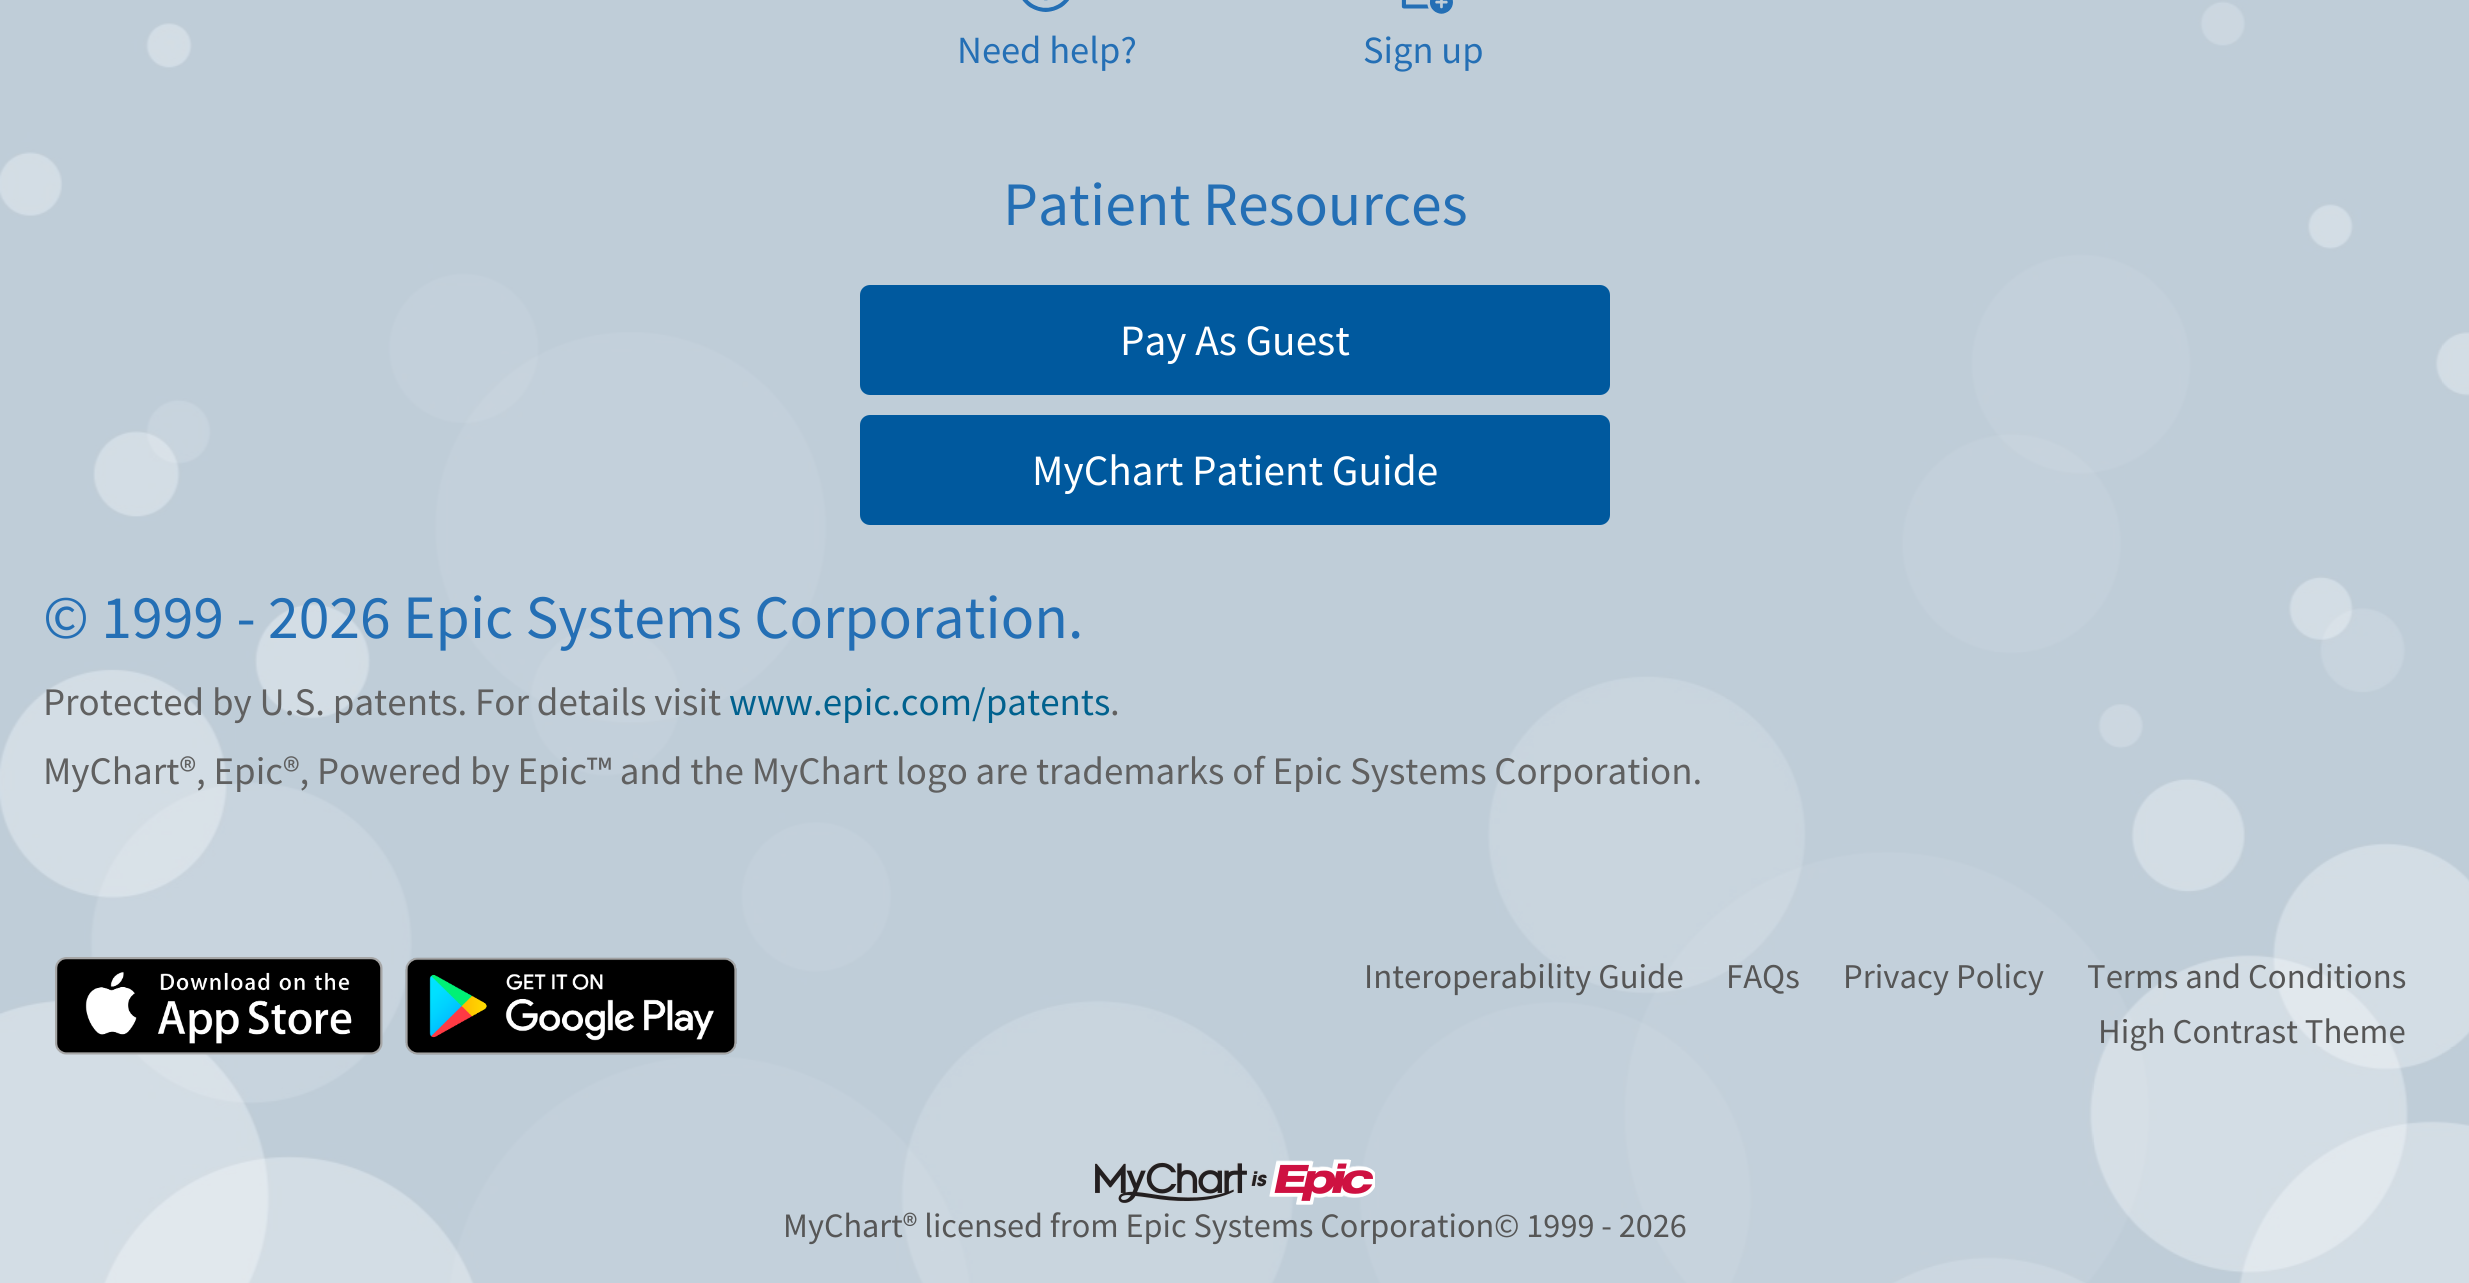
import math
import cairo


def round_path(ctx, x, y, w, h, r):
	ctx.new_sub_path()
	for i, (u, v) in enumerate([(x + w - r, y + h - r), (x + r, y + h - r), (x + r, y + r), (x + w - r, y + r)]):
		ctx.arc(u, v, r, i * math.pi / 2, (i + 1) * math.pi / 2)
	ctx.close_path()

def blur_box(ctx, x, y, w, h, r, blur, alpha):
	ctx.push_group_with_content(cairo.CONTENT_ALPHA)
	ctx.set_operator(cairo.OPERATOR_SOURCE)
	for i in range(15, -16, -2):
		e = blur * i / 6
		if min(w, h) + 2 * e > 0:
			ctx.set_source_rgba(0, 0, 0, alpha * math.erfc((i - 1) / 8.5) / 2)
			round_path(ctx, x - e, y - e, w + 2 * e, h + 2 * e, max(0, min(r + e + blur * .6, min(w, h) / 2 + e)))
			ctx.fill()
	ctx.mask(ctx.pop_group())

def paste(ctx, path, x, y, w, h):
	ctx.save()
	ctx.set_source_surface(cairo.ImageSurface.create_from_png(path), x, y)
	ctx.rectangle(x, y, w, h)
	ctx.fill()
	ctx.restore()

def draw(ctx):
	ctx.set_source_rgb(1, 1, 1)
	ctx.paint()
	paste(ctx, 'media/1.png', 0, 0, 2469, 1240)
	ctx.save()
	ctx.set_fill_rule(cairo.FILL_RULE_EVEN_ODD)
	ctx.new_path()
	ctx.move_to(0, 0)
	ctx.line_to(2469, 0)
	ctx.line_to(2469, 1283)
	ctx.line_to(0, 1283)
	ctx.close_path()
	ctx.move_to(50, -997)
	ctx.line_to(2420, -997)
	ctx.curve_to(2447.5, -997, 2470, -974.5, 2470, -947)
	ctx.line_to(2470, 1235)
	ctx.curve_to(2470, 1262.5, 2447.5, 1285, 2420, 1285)
	ctx.line_to(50, 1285)
	ctx.curve_to(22.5, 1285, 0, 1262.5, 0, 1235)
	ctx.line_to(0, -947)
	ctx.curve_to(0, -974.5, 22.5, -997, 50, -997)
	ctx.close_path()
	ctx.clip()
	ctx.set_source_rgb(0, 0, 0)
	blur_box(ctx, 0, -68, 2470, 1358, 50, 6, 0.2)
	ctx.restore()
	ctx.set_source_rgba(1, 1, 1, 0.75)
	ctx.rectangle(0, 0, 2469, 880)
	ctx.fill()
	paste(ctx, 'media/2.png', 1022, 0, 47, 12)
	ctx.select_font_face('Source Sans Pro')
	ctx.set_font_size(38.5)
	ctx.set_source_rgb(0.141, 0.435, 0.71)
	ctx.move_to(957, 63)
	ctx.show_text('Need help?')
	paste(ctx, 'media/3.png', 1401, 0, 52, 14)
	ctx.move_to(1363, 63)
	ctx.show_text('Sign up')
	ctx.set_font_size(61.75)
	ctx.move_to(1003, 225)
	ctx.show_text('Patient Resources')
	ctx.set_source_rgb(0, 0.349, 0.62)
	round_path(ctx, 860, 285, 750, 110, 10)
	ctx.fill()
	ctx.set_font_size(43.25)
	ctx.set_source_rgb(1, 1, 1)
	ctx.move_to(1120, 355)
	ctx.show_text('Pay As Guest')
	ctx.set_source_rgb(0, 0.349, 0.62)
	round_path(ctx, 860, 415, 750, 110, 10)
	ctx.fill()
	ctx.set_source_rgb(1, 1, 1)
	ctx.move_to(1032, 485)
	ctx.show_text('MyChart Patient Guide')
	ctx.set_font_size(61.75)
	ctx.set_source_rgb(0.141, 0.435, 0.71)
	ctx.move_to(43, 638)
	ctx.show_text('© 1999 - 2026 Epic Systems Corporation.')
	ctx.set_font_size(39)
	ctx.set_source_rgb(0.376, 0.376, 0.376)
	ctx.move_to(43, 715)
	ctx.show_text('Protected by U.S. patents. For details visit')
	ctx.set_source_rgb(0, 0.38, 0.557)
	ctx.move_to(729, 715)
	ctx.show_text('www.epic.com/patents')
	ctx.set_source_rgb(0.376, 0.376, 0.376)
	ctx.move_to(1110, 715)
	ctx.show_text('.')
	ctx.move_to(43, 784)
	ctx.show_text('MyChart®, Epic®, Powered by Epic™ and the MyChart logo are trademarks of Epic Systems Corporation.')
	paste(ctx, 'media/4.png', 1095, 1159, 280, 46)
	ctx.set_source_rgba(1, 1, 1, 0.75)
	ctx.rectangle(0, 880, 2469, 215)
	ctx.fill()
	paste(ctx, 'media/5.png', 55, 957, 328, 98)
	paste(ctx, 'media/6.png', 405, 957, 332, 98)
	ctx.set_font_size(34.75)
	ctx.set_source_rgb(0.337, 0.337, 0.337)
	for x, y, s in [
		(1364, 988, 'Interoperability Guide'),
		(1726, 988, 'FAQs'),
		(1843, 988, 'Privacy Policy'),
		(2087, 988, 'Terms and Conditions'),
		(2098, 1043, 'High Contrast Theme'),
	]:
		ctx.move_to(x, y)
		ctx.show_text(s)
	paste(ctx, 'media/8.png', 0, 1240, 2469, 43)
	ctx.set_source_rgba(1, 1, 1, 0.75)
	ctx.rectangle(0, 1095, 2469, 188)
	ctx.fill()
	paste(ctx, 'media/7.png', 1095, 1160, 280, 45)
	ctx.set_font_size(34.25)
	ctx.set_source_rgb(0.337, 0.337, 0.337)
	ctx.move_to(783, 1237)
	ctx.show_text('MyChart® licensed from Epic Systems Corporation')
	ctx.move_to(1494, 1237)
	ctx.show_text('© 1999 - 2026')


surface = cairo.ImageSurface(cairo.FORMAT_RGB24, 2469, 1283)
ctx = cairo.Context(surface)
options = cairo.FontOptions()
options.set_hint_metrics(cairo.HINT_METRICS_OFF)
options.set_hint_style(cairo.HINT_STYLE_NONE)
ctx.set_font_options(options)
ctx.set_miter_limit(4)
draw(ctx)
surface.write_to_png('image.png')
